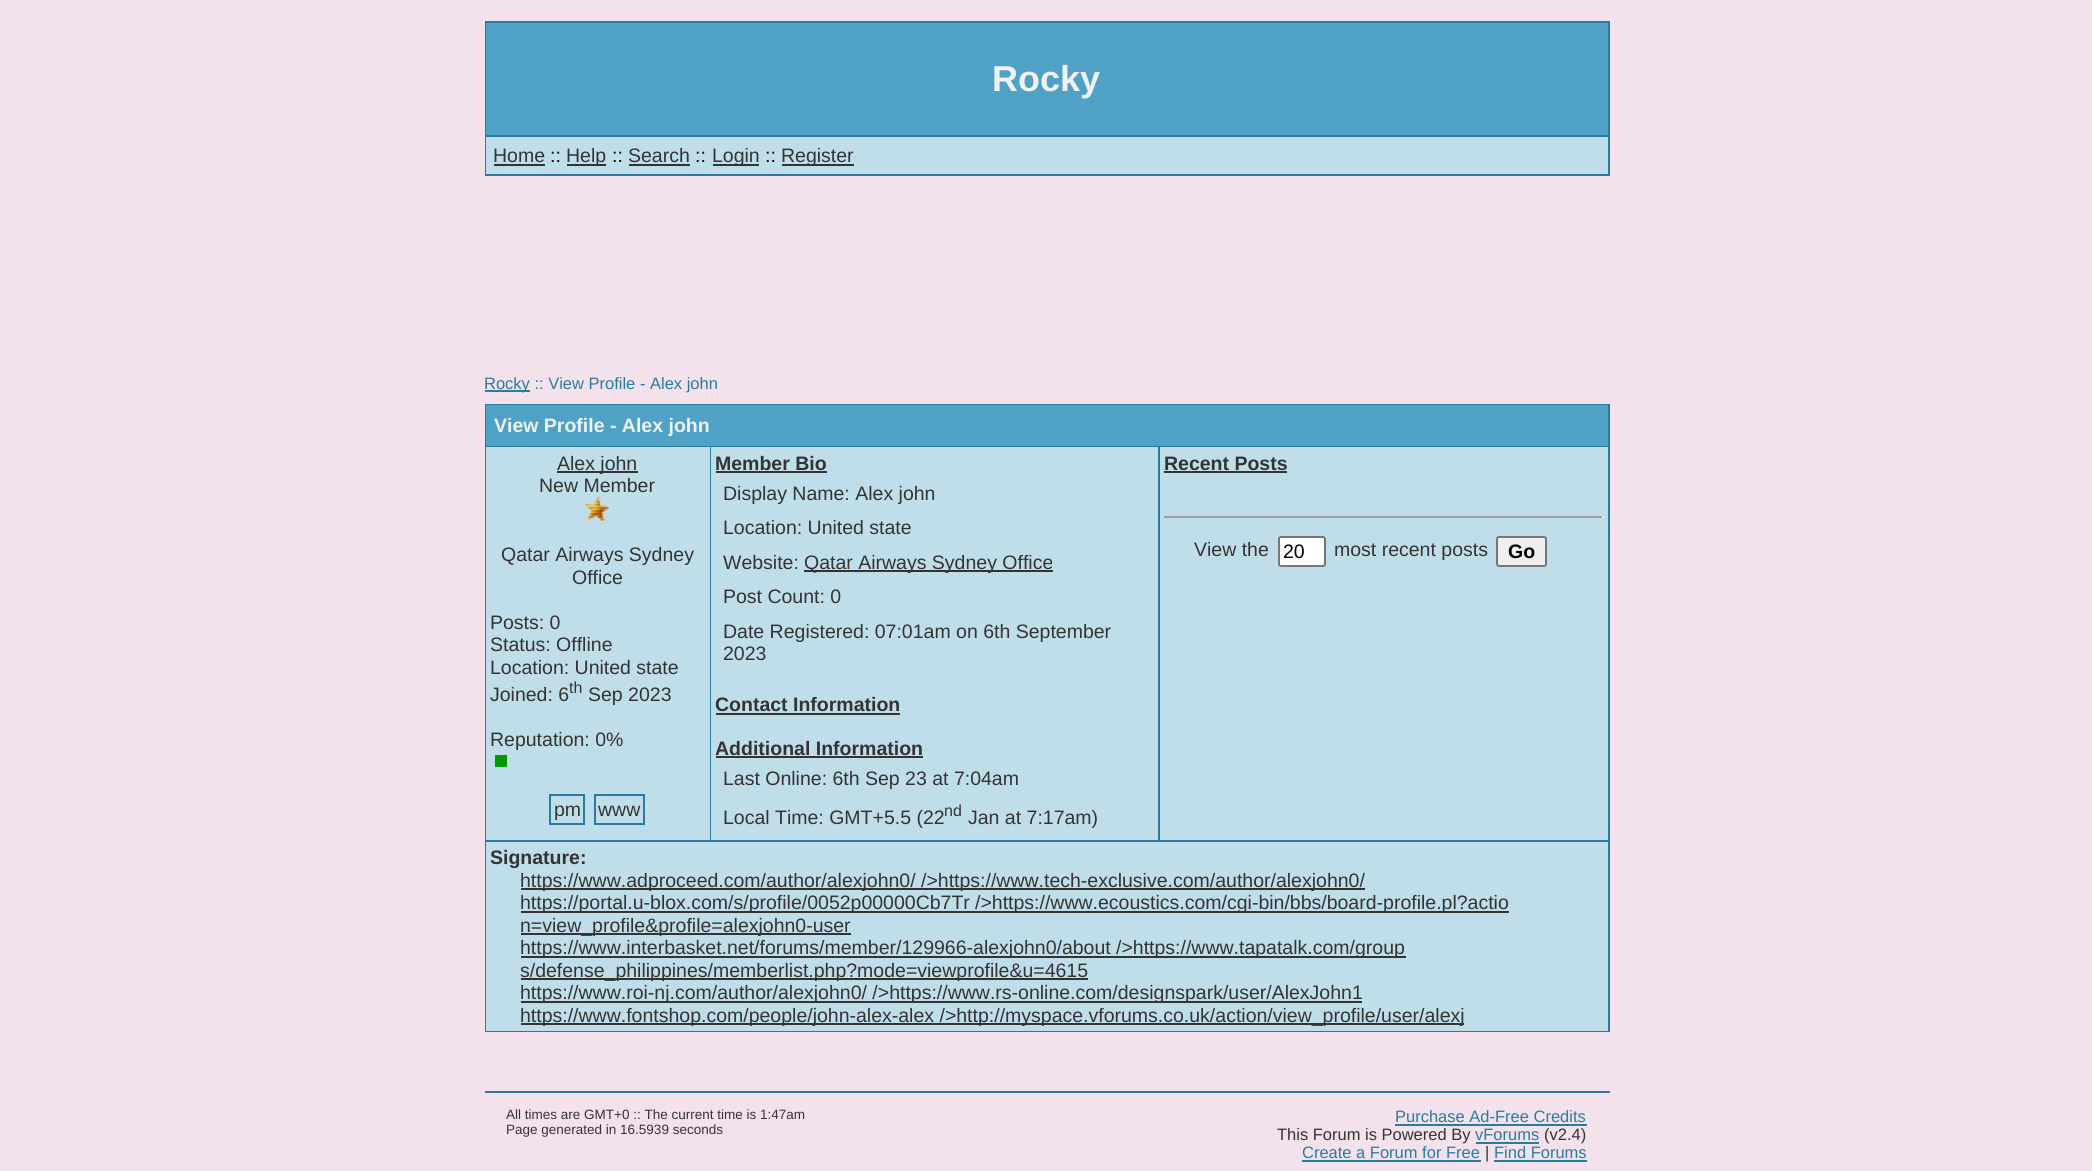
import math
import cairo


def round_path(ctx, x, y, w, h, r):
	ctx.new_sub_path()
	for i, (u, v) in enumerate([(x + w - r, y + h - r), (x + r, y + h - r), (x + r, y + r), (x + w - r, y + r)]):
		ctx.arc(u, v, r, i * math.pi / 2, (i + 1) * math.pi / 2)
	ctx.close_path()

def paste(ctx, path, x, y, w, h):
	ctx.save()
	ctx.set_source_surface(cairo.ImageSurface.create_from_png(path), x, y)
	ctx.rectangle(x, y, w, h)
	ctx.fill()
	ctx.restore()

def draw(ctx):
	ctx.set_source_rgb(0.953, 0.886, 0.918)
	ctx.paint()
	ctx.set_source_rgb(0.161, 0.482, 0.627)
	ctx.rectangle(485, 21, 1125, 155)
	ctx.fill()
	ctx.set_source_rgb(0.31, 0.631, 0.776)
	ctx.rectangle(486, 23, 1122, 112)
	ctx.fill()
	ctx.select_font_face('Liberation Sans', cairo.FONT_SLANT_NORMAL, cairo.FONT_WEIGHT_BOLD)
	ctx.set_font_size(36)
	ctx.set_source_rgb(0.945, 0.945, 0.945)
	ctx.move_to(992, 91)
	ctx.show_text('Rocky')
	ctx.set_source_rgb(0.753, 0.871, 0.914)
	ctx.rectangle(486, 137, 1122, 37)
	ctx.fill()
	ctx.select_font_face('Liberation Sans')
	ctx.set_font_size(19.5)
	ctx.set_source_rgb(0.2, 0.2, 0.2)
	ctx.move_to(493, 162)
	ctx.show_text('Home')
	ctx.rectangle(494, 164, 51, 2)
	ctx.fill()
	ctx.set_source_rgb(0, 0, 0)
	ctx.move_to(550, 162)
	ctx.show_text('::')
	ctx.set_source_rgb(0.2, 0.2, 0.2)
	ctx.rectangle(567, 164, 39, 2)
	ctx.fill()
	ctx.move_to(566, 162)
	ctx.show_text('Help')
	ctx.set_source_rgb(0, 0, 0)
	ctx.move_to(612, 162)
	ctx.show_text('::')
	ctx.set_source_rgb(0.2, 0.2, 0.2)
	ctx.move_to(628, 162)
	ctx.show_text('Search')
	ctx.rectangle(629, 164, 61, 2)
	ctx.fill()
	ctx.set_source_rgb(0, 0, 0)
	ctx.move_to(695, 162)
	ctx.show_text('::')
	ctx.set_source_rgb(0.2, 0.2, 0.2)
	ctx.rectangle(713, 164, 46, 2)
	ctx.fill()
	ctx.move_to(712, 162)
	ctx.show_text('Login')
	ctx.set_source_rgb(0, 0, 0)
	ctx.move_to(765, 162)
	ctx.show_text('::')
	ctx.set_source_rgb(0.2, 0.2, 0.2)
	ctx.rectangle(782, 164, 72, 2)
	ctx.fill()
	ctx.move_to(781, 162)
	ctx.show_text('Register')
	ctx.set_source_rgb(0.161, 0.482, 0.627)
	ctx.rectangle(485, 390, 45, 2)
	ctx.fill()
	ctx.set_font_size(16.5)
	ctx.move_to(484, 389)
	ctx.show_text('Rocky :: View Profile - Alex john')
	ctx.rectangle(485, 404, 1125, 628)
	ctx.fill()
	ctx.set_source_rgb(0.31, 0.631, 0.776)
	ctx.rectangle(486, 405, 1122, 41)
	ctx.fill()
	ctx.select_font_face('Liberation Sans', cairo.FONT_SLANT_NORMAL, cairo.FONT_WEIGHT_BOLD)
	ctx.set_font_size(19.5)
	ctx.set_source_rgb(0.945, 0.945, 0.945)
	ctx.move_to(494, 432)
	ctx.show_text('View Profile - Alex john')
	ctx.set_source_rgb(0.753, 0.871, 0.914)
	ctx.rectangle(486, 447, 224, 393)
	ctx.fill()
	ctx.set_source_rgb(0.2, 0.2, 0.2)
	ctx.rectangle(557, 471, 81, 2)
	ctx.fill()
	ctx.select_font_face('Liberation Sans')
	ctx.move_to(557, 470)
	ctx.show_text('Alex john')
	ctx.move_to(539, 492)
	ctx.show_text('New Member')
	paste(ctx, 'media/1.png', 585, 496, 24, 25)
	for x, y, s in [
		(501, 561, 'Qatar Airways Sydney'),
		(572, 584, 'Office'),
		(490, 629, 'Posts: 0'),
		(490, 651, 'Status: Offline'),
		(490, 674, 'Location: United state'),
		(490, 701, 'Joined: 6'),
	]:
		ctx.move_to(x, y)
		ctx.show_text(s)
	ctx.set_font_size(16)
	ctx.move_to(569, 693)
	ctx.show_text('th')
	ctx.set_font_size(19.5)
	ctx.move_to(588, 701)
	ctx.show_text('Sep 2023')
	ctx.move_to(490, 746)
	ctx.show_text('Reputation: 0%')
	ctx.set_source_rgb(0, 0.6, 0)
	ctx.rectangle(495, 755, 12, 12)
	ctx.fill()
	ctx.rectangle(550, 795, 34, 29)
	ctx.set_source_rgb(0.161, 0.482, 0.627)
	ctx.stroke()
	ctx.set_source_rgb(0.2, 0.2, 0.2)
	ctx.move_to(554, 816)
	ctx.show_text('pm')
	ctx.rectangle(595, 795, 49, 29)
	ctx.set_source_rgb(0.161, 0.482, 0.627)
	ctx.stroke()
	ctx.set_source_rgb(0.2, 0.2, 0.2)
	ctx.move_to(598, 816)
	ctx.show_text('www')
	ctx.set_source_rgb(0.753, 0.871, 0.914)
	ctx.rectangle(711, 447, 447, 393)
	ctx.fill()
	ctx.select_font_face('Liberation Sans', cairo.FONT_SLANT_NORMAL, cairo.FONT_WEIGHT_BOLD)
	ctx.set_source_rgb(0.2, 0.2, 0.2)
	ctx.move_to(715, 470)
	ctx.show_text('Member Bio')
	ctx.rectangle(716, 471, 111, 2)
	ctx.fill()
	ctx.select_font_face('Liberation Sans')
	for x, y, s in [
		(723, 500, 'Display Name: Alex john'),
		(723, 534, 'Location: United state'),
		(723, 569, 'Website:'),
	]:
		ctx.move_to(x, y)
		ctx.show_text(s)
	ctx.rectangle(804, 570, 249, 2)
	ctx.fill()
	for x, y, s in [
		(804, 569, 'Qatar Airways Sydney Office'),
		(723, 603, 'Post Count: 0'),
		(723, 638, 'Date Registered: 07:01am on 6th September'),
		(723, 660, '2023'),
	]:
		ctx.move_to(x, y)
		ctx.show_text(s)
	ctx.select_font_face('Liberation Sans', cairo.FONT_SLANT_NORMAL, cairo.FONT_WEIGHT_BOLD)
	ctx.move_to(715, 711)
	ctx.show_text('Contact Information')
	ctx.rectangle(716, 713, 184, 2)
	ctx.fill()
	ctx.move_to(715, 755)
	ctx.show_text('Additional Information')
	ctx.rectangle(716, 756, 207, 2)
	ctx.fill()
	ctx.select_font_face('Liberation Sans')
	ctx.move_to(723, 785)
	ctx.show_text('Last Online: 6th Sep 23 at 7:04am')
	ctx.move_to(723, 824)
	ctx.show_text('Local Time: GMT+5.5 (22')
	ctx.set_font_size(16)
	ctx.move_to(944, 816)
	ctx.show_text('nd')
	ctx.set_font_size(19.5)
	ctx.move_to(968, 824)
	ctx.show_text('Jan at 7:17am)')
	ctx.set_source_rgb(0.753, 0.871, 0.914)
	ctx.rectangle(1160, 447, 448, 393)
	ctx.fill()
	ctx.select_font_face('Liberation Sans', cairo.FONT_SLANT_NORMAL, cairo.FONT_WEIGHT_BOLD)
	ctx.set_source_rgb(0.2, 0.2, 0.2)
	ctx.move_to(1164, 470)
	ctx.show_text('Recent Posts')
	ctx.rectangle(1164, 471, 123, 2)
	ctx.fill()
	ctx.set_source_rgb(0.624, 0.624, 0.624)
	ctx.rectangle(1164, 516, 440, 2)
	ctx.fill()
	ctx.set_source_rgb(0.933, 0.933, 0.933)
	ctx.rectangle(1602, 516, 2, 2)
	ctx.fill()
	ctx.select_font_face('Liberation Sans')
	ctx.set_source_rgb(0.2, 0.2, 0.2)
	ctx.move_to(1194, 556)
	ctx.show_text('View the')
	ctx.set_source_rgb(1, 1, 1)
	round_path(ctx, 1279, 537, 46, 29, 2)
	ctx.fill_preserve()
	ctx.set_source_rgb(0.463, 0.463, 0.463)
	ctx.stroke()
	ctx.set_source_rgb(0, 0, 0)
	ctx.move_to(1283, 558)
	ctx.show_text('20')
	ctx.set_source_rgb(0.2, 0.2, 0.2)
	ctx.move_to(1334, 556)
	ctx.show_text('most recent posts')
	ctx.set_source_rgb(0.937, 0.937, 0.937)
	round_path(ctx, 1497, 537, 49, 29, 2)
	ctx.fill_preserve()
	ctx.set_source_rgb(0.463, 0.463, 0.463)
	ctx.stroke()
	ctx.select_font_face('Liberation Sans', cairo.FONT_SLANT_NORMAL, cairo.FONT_WEIGHT_BOLD)
	ctx.set_source_rgb(0, 0, 0)
	ctx.move_to(1508, 558)
	ctx.show_text('Go')
	ctx.set_source_rgb(0.753, 0.871, 0.914)
	ctx.rectangle(486, 842, 1122, 189)
	ctx.fill()
	ctx.set_source_rgb(0.2, 0.2, 0.2)
	ctx.move_to(490, 864)
	ctx.show_text('Signature:')
	ctx.rectangle(521, 888, 394, 2)
	ctx.fill()
	ctx.select_font_face('Liberation Sans')
	ctx.move_to(520, 887)
	ctx.show_text('https://www.adproceed.com/author/alexjohn0/')
	ctx.rectangle(915, 888, 450, 2)
	ctx.fill()
	ctx.move_to(921, 887)
	ctx.show_text('/>https://www.tech-exclusive.com/author/alexjohn0/')
	ctx.rectangle(521, 911, 448, 2)
	ctx.fill()
	ctx.move_to(520, 909)
	ctx.show_text('https://portal.u-blox.com/s/profile/0052p00000Cb7Tr')
	ctx.rectangle(969, 911, 540, 2)
	ctx.fill()
	ctx.move_to(975, 909)
	ctx.show_text('/>https://www.ecoustics.com/cgi-bin/bbs/board-profile.pl?actio')
	ctx.rectangle(521, 933, 330, 2)
	ctx.fill()
	ctx.move_to(520, 932)
	ctx.show_text('n=view_profile&profile=alexjohn0-user')
	ctx.rectangle(521, 956, 589, 2)
	ctx.fill()
	ctx.move_to(520, 954)
	ctx.show_text('https://www.interbasket.net/forums/member/129966-alexjohn0/about')
	ctx.rectangle(1110, 956, 296, 2)
	ctx.fill()
	ctx.move_to(1116, 954)
	ctx.show_text('/>https://www.tapatalk.com/group')
	ctx.rectangle(521, 978, 567, 2)
	ctx.fill()
	ctx.move_to(520, 977)
	ctx.show_text('s/defense_philippines/memberlist.php?mode=viewprofile&u=4615')
	ctx.rectangle(521, 1001, 256, 2)
	ctx.fill()
	ctx.move_to(520, 999)
	ctx.show_text('https://www.roi-nj.com/author/')
	ctx.rectangle(777, 1001, 585, 2)
	ctx.fill()
	ctx.move_to(778, 999)
	ctx.show_text('alexjohn0/ />https://www.rs-online.com/designspark/user/AlexJohn1')
	ctx.rectangle(521, 1023, 943, 2)
	ctx.fill()
	ctx.move_to(520, 1022)
	ctx.show_text('https://www.fontshop.com/people/john-alex-alex />http://myspace.vforums.co.uk/action/view_profile/user/alexj')
	ctx.set_source_rgb(0.161, 0.482, 0.627)
	ctx.rectangle(485, 1091, 1125, 2)
	ctx.fill()
	ctx.set_font_size(13.5)
	ctx.set_source_rgb(0.2, 0.2, 0.2)
	ctx.move_to(506, 1119)
	ctx.show_text('All times are GMT+0 :: The current time is 1:47am')
	ctx.move_to(506, 1134)
	ctx.show_text('Page generated in 16.5939 seconds')
	ctx.set_font_size(16.5)
	ctx.set_source_rgb(0.161, 0.482, 0.627)
	ctx.move_to(1395, 1122)
	ctx.show_text('Purchase Ad-Free Credits')
	ctx.rectangle(1395, 1124, 192, 2)
	ctx.fill()
	ctx.set_source_rgb(0.2, 0.2, 0.2)
	ctx.move_to(1277, 1140)
	ctx.show_text('This Forum is Powered By')
	ctx.set_source_rgb(0.161, 0.482, 0.627)
	ctx.move_to(1475, 1140)
	ctx.show_text('vForums')
	ctx.rectangle(1476, 1142, 63, 2)
	ctx.fill()
	ctx.set_source_rgb(0.2, 0.2, 0.2)
	ctx.move_to(1544, 1140)
	ctx.show_text('(v2.4)')
	ctx.set_source_rgb(0.161, 0.482, 0.627)
	ctx.move_to(1302, 1158)
	ctx.show_text('Create a Forum for Free')
	ctx.rectangle(1302, 1160, 179, 2)
	ctx.fill()
	ctx.set_source_rgb(0.2, 0.2, 0.2)
	ctx.move_to(1485, 1158)
	ctx.show_text('|')
	ctx.set_source_rgb(0.161, 0.482, 0.627)
	ctx.move_to(1494, 1158)
	ctx.show_text('Find Forums')
	ctx.rectangle(1494, 1160, 93, 2)
	ctx.fill()


surface = cairo.ImageSurface(cairo.FORMAT_RGB24, 2092, 1171)
ctx = cairo.Context(surface)
options = cairo.FontOptions()
options.set_hint_metrics(cairo.HINT_METRICS_OFF)
options.set_hint_style(cairo.HINT_STYLE_NONE)
ctx.set_font_options(options)
ctx.set_miter_limit(4)
draw(ctx)
surface.write_to_png('image.png')
